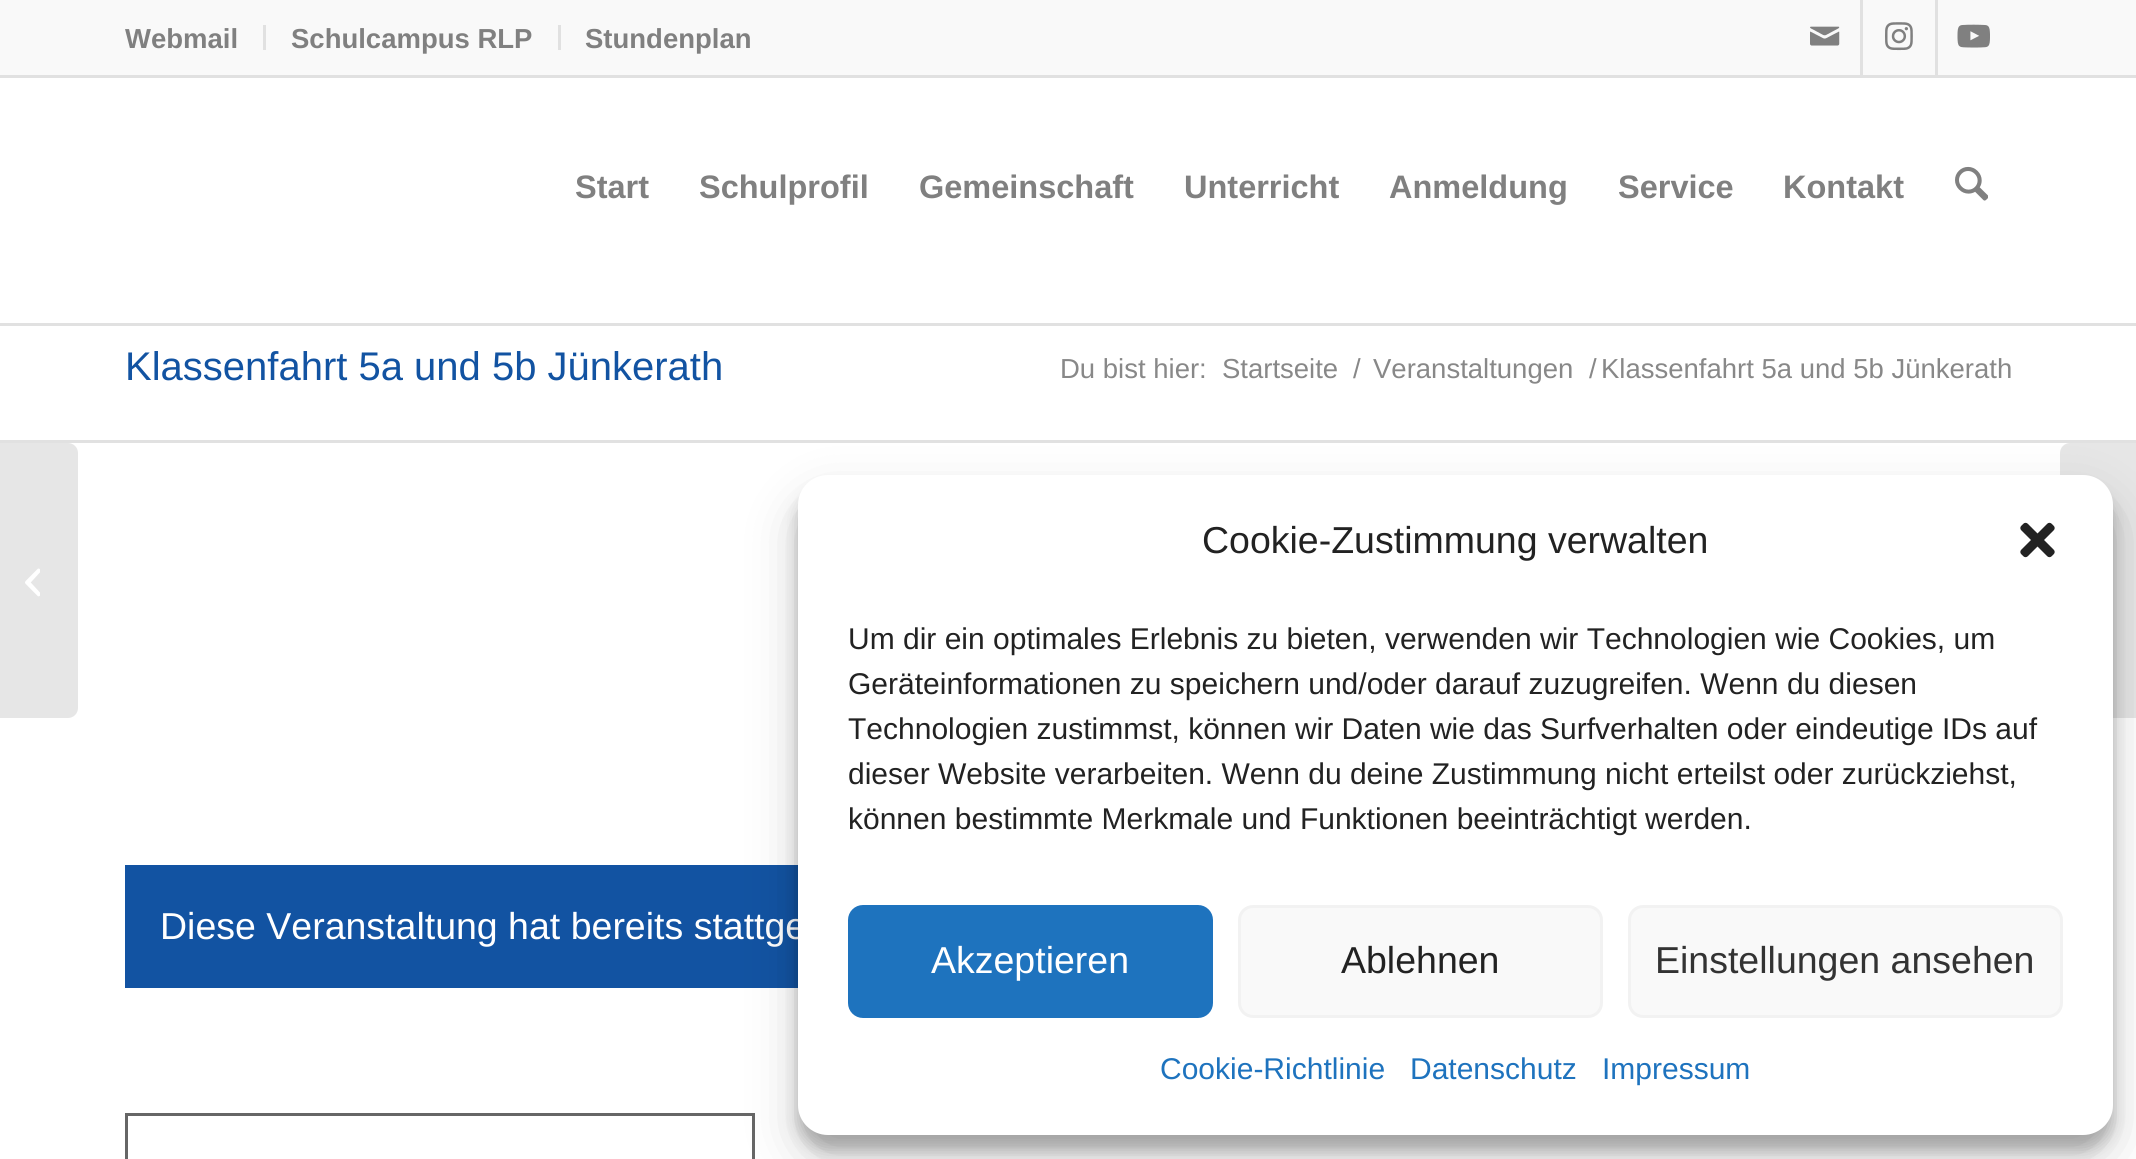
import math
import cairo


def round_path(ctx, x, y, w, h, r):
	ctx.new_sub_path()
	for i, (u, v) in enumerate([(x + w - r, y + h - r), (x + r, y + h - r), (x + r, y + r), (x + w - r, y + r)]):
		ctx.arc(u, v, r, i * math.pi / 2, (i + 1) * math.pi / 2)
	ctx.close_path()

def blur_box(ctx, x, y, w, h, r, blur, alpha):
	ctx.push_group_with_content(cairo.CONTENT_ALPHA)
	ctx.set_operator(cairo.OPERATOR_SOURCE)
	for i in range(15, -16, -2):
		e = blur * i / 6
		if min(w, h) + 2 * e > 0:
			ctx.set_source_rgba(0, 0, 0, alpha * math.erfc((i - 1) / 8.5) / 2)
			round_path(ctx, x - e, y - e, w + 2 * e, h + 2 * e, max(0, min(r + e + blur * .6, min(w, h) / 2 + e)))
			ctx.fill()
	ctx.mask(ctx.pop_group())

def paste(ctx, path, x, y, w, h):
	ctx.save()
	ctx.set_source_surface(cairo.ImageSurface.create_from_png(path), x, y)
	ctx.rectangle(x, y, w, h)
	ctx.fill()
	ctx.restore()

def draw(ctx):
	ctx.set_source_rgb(1, 1, 1)
	ctx.paint()
	ctx.set_source_rgb(0.973, 0.973, 0.973)
	ctx.rectangle(0, 0, 2136, 75)
	ctx.fill()
	ctx.set_source_rgb(0.882, 0.882, 0.882)
	ctx.rectangle(0, 75, 2136, 3)
	ctx.rectangle(263, 25, 3, 25)
	ctx.fill()
	ctx.select_font_face('Liberation Sans', cairo.FONT_SLANT_NORMAL, cairo.FONT_WEIGHT_BOLD)
	ctx.set_font_size(27.5)
	ctx.set_source_rgb(0.502, 0.502, 0.502)
	ctx.move_to(125, 48)
	ctx.show_text('Webmail')
	ctx.set_source_rgb(0.882, 0.882, 0.882)
	ctx.rectangle(558, 25, 3, 25)
	ctx.fill()
	ctx.set_source_rgb(0.502, 0.502, 0.502)
	ctx.move_to(291, 48)
	ctx.show_text('Schulcampus RLP')
	ctx.move_to(585, 48)
	ctx.show_text('Stundenplan')
	ctx.set_source_rgb(0.882, 0.882, 0.882)
	ctx.rectangle(1860, 0, 3, 75)
	ctx.fill()
	paste(ctx, 'media/1.png', 1810, 26, 30, 20)
	ctx.rectangle(1935, 0, 3, 75)
	ctx.fill()
	paste(ctx, 'media/2.png', 1885, 22, 28, 29)
	paste(ctx, 'media/3.png', 1957, 24, 33, 24)
	ctx.rectangle(0, 323, 2136, 3)
	ctx.fill()
	ctx.set_font_size(32.5)
	ctx.set_source_rgb(0.502, 0.502, 0.502)
	for x, y, s in [
		(575, 198, 'Start'),
		(699, 198, 'Schulprofil'),
		(919, 198, 'Gemeinschaft'),
		(1184, 198, 'Unterricht'),
		(1389, 198, 'Anmeldung'),
		(1618, 198, 'Service'),
		(1783, 198, 'Kontakt'),
	]:
		ctx.move_to(x, y)
		ctx.show_text(s)
	paste(ctx, 'media/4.png', 1955, 166, 33, 35)
	ctx.set_source_rgb(0.902, 0.902, 0.902)
	ctx.new_path()
	ctx.move_to(0, 443)
	ctx.line_to(68, 443)
	ctx.curve_to(73.5, 443, 78, 447.5, 78, 453)
	ctx.line_to(78, 708)
	ctx.curve_to(78, 713.5, 73.5, 718, 68, 718)
	ctx.line_to(0, 718)
	ctx.close_path()
	ctx.fill()
	paste(ctx, 'media/5.png', 25, 568, 15, 29)
	ctx.select_font_face('Liberation Sans')
	ctx.set_font_size(40)
	ctx.set_source_rgb(0.071, 0.325, 0.635)
	ctx.move_to(125, 380)
	ctx.show_text('Klassenfahrt 5a und 5b Jünkerath')
	ctx.set_font_size(27.5)
	ctx.set_source_rgb(0.533, 0.533, 0.533)
	for x, y, s in [
		(1060, 378, 'Du bist hier:'),
		(1222, 378, 'Startseite'),
		(1353, 378, '/'),
		(1373, 378, 'Veranstaltungen'),
		(1589, 378, '/'),
		(1601, 378, 'Klassenfahrt 5a und 5b Jünkerath'),
	]:
		ctx.move_to(x, y)
		ctx.show_text(s)
	ctx.set_source_rgb(0.882, 0.882, 0.882)
	ctx.rectangle(0, 440, 2136, 3)
	ctx.fill()
	ctx.set_source_rgb(0.071, 0.325, 0.635)
	ctx.rectangle(125, 865, 673, 123)
	ctx.fill()
	ctx.set_font_size(37.5)
	ctx.set_source_rgb(1, 1, 1)
	ctx.move_to(160, 939)
	ctx.show_text('Diese Veranstaltung hat bereits stattge')
	ctx.rectangle(126.5, 1114.5, 627, 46)
	ctx.set_source_rgb(0.4, 0.4, 0.4)
	ctx.set_line_width(3)
	ctx.stroke()
	ctx.set_source_rgb(0.902, 0.902, 0.902)
	ctx.new_path()
	ctx.move_to(2070, 443)
	ctx.line_to(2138, 443)
	ctx.line_to(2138, 718)
	ctx.line_to(2070, 718)
	ctx.curve_to(2064.5, 718, 2060, 713.5, 2060, 708)
	ctx.line_to(2060, 453)
	ctx.curve_to(2060, 447.5, 2064.5, 443, 2070, 443)
	ctx.close_path()
	ctx.fill()
	ctx.set_source_rgb(0, 0, 0)
	blur_box(ctx, 798, 490, 1315, 660, 30, 7.5, 0.23)
	blur_box(ctx, 798, 500, 1315, 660, 30, 25, 0.19)
	ctx.set_source_rgb(1, 1, 1)
	round_path(ctx, 798, 475, 1315, 660, 30)
	ctx.fill()
	ctx.set_source_rgb(0.133, 0.133, 0.133)
	ctx.move_to(1202, 553)
	ctx.show_text('Cookie-Zustimmung verwalten')
	paste(ctx, 'media/6.png', 2020, 522, 35, 36)
	ctx.set_font_size(30)
	for x, y, s in [
		(848, 649, 'Um dir ein optimales Erlebnis zu bieten, verwenden wir Technologien wie Cookies, um'),
		(848, 694, 'Geräteinformationen zu speichern und/oder darauf zuzugreifen. Wenn du diesen'),
		(848, 739, 'Technologien zustimmst, können wir Daten wie das Surfverhalten oder eindeutige IDs auf'),
		(848, 784, 'dieser Website verarbeiten. Wenn du deine Zustimmung nicht erteilst oder zurückziehst,'),
		(848, 829, 'können bestimmte Merkmale und Funktionen beeinträchtigt werden.'),
	]:
		ctx.move_to(x, y)
		ctx.show_text(s)
	ctx.set_source_rgb(0.118, 0.451, 0.745)
	round_path(ctx, 849.5, 906.5, 362, 110, 13.5)
	ctx.fill_preserve()
	ctx.stroke()
	ctx.set_font_size(37.5)
	ctx.set_source_rgb(1, 1, 1)
	ctx.move_to(931, 973)
	ctx.show_text('Akzeptieren')
	ctx.set_source_rgb(0.976, 0.976, 0.976)
	round_path(ctx, 1239.5, 906.5, 362, 110, 13.5)
	ctx.fill_preserve()
	ctx.set_source_rgb(0.949, 0.949, 0.949)
	ctx.stroke()
	ctx.set_source_rgb(0.133, 0.133, 0.133)
	ctx.move_to(1341, 973)
	ctx.show_text('Ablehnen')
	ctx.set_source_rgb(0.976, 0.976, 0.976)
	round_path(ctx, 1629.5, 906.5, 432, 110, 13.5)
	ctx.fill_preserve()
	ctx.set_source_rgb(0.949, 0.949, 0.949)
	ctx.stroke()
	ctx.set_source_rgb(0.2, 0.2, 0.2)
	ctx.move_to(1655, 973)
	ctx.show_text('Einstellungen ansehen')
	ctx.set_font_size(30)
	ctx.set_source_rgb(0.118, 0.451, 0.745)
	for x, y, s in [
		(1160, 1079, 'Cookie-Richtlinie'),
		(1410, 1079, 'Datenschutz'),
		(1602, 1079, 'Impressum'),
	]:
		ctx.move_to(x, y)
		ctx.show_text(s)


surface = cairo.ImageSurface(cairo.FORMAT_RGB24, 2136, 1159)
ctx = cairo.Context(surface)
options = cairo.FontOptions()
options.set_hint_metrics(cairo.HINT_METRICS_OFF)
options.set_hint_style(cairo.HINT_STYLE_NONE)
ctx.set_font_options(options)
ctx.set_miter_limit(4)
draw(ctx)
surface.write_to_png('image.png')
